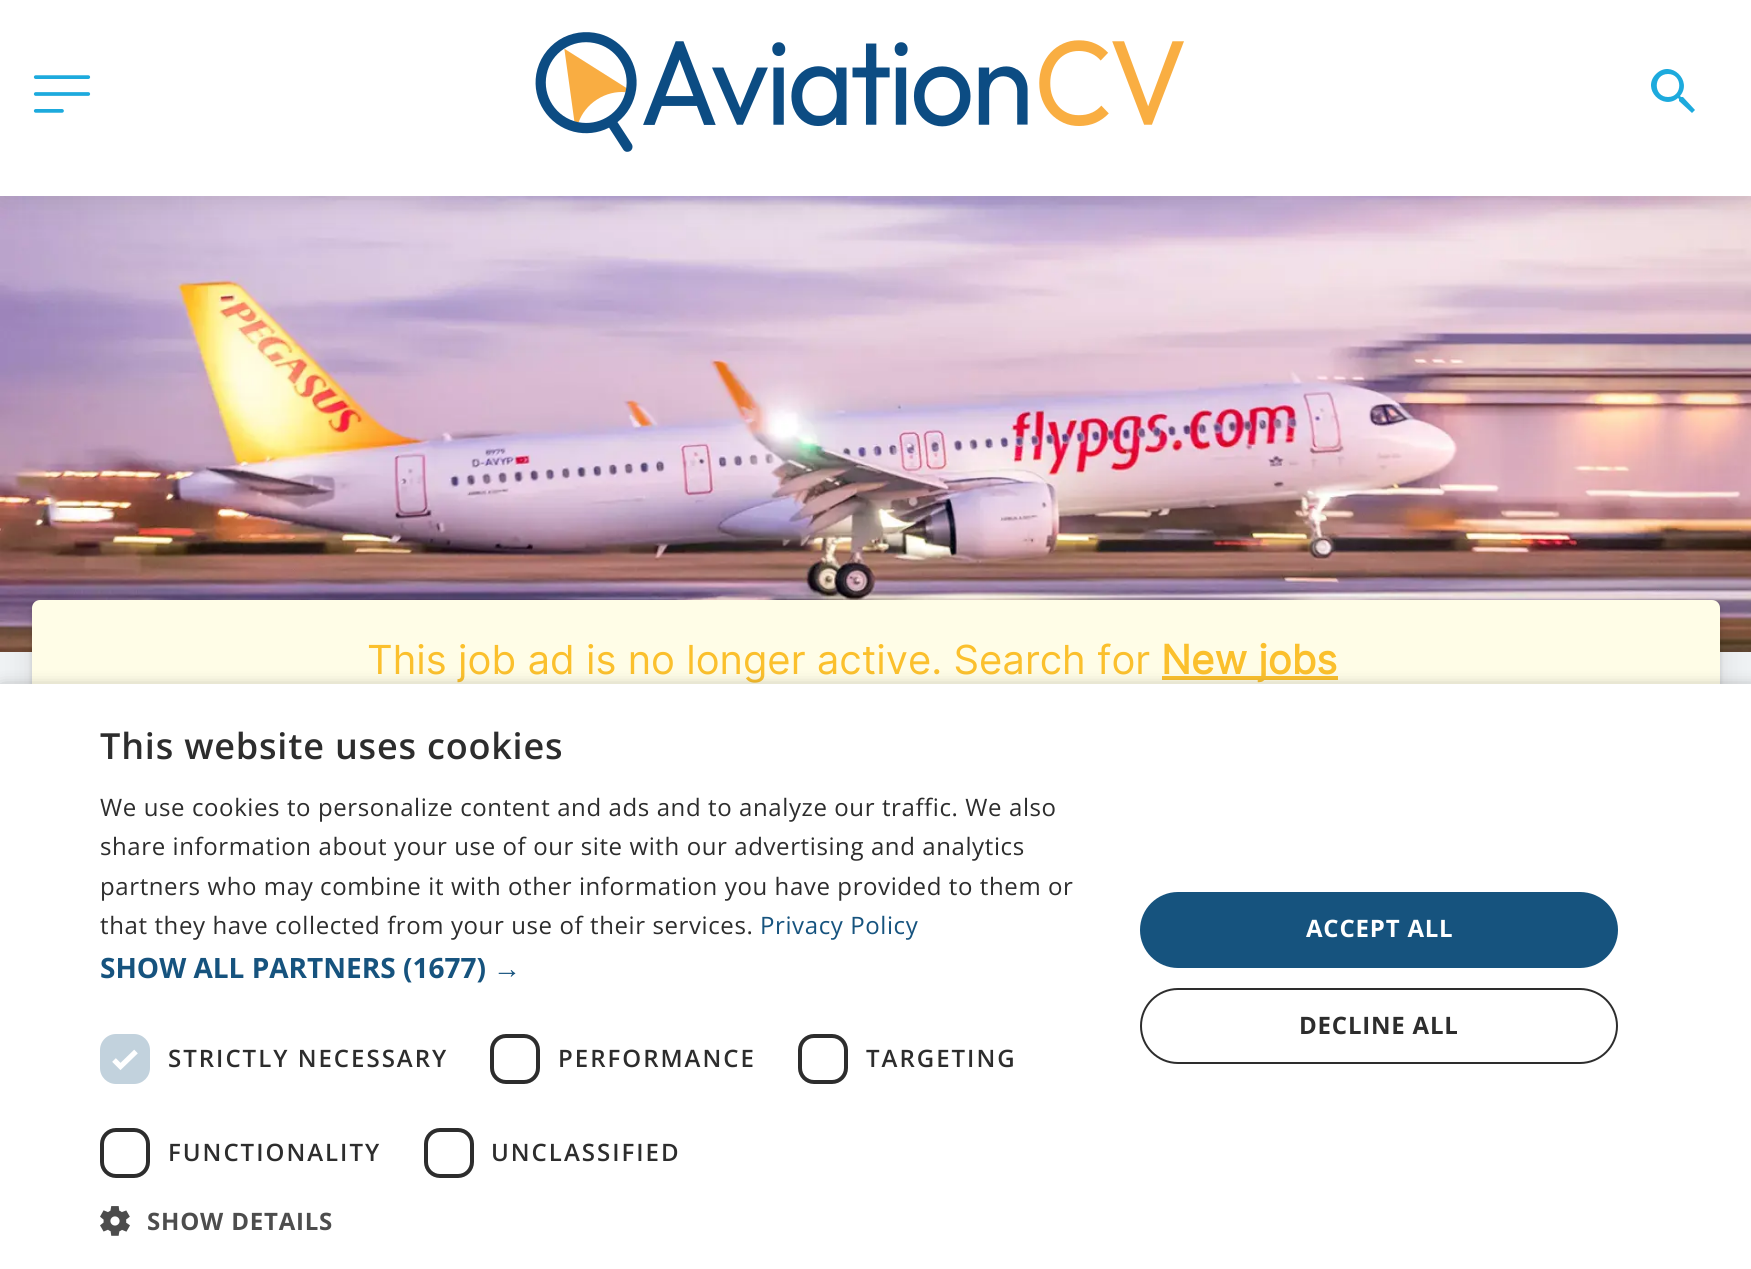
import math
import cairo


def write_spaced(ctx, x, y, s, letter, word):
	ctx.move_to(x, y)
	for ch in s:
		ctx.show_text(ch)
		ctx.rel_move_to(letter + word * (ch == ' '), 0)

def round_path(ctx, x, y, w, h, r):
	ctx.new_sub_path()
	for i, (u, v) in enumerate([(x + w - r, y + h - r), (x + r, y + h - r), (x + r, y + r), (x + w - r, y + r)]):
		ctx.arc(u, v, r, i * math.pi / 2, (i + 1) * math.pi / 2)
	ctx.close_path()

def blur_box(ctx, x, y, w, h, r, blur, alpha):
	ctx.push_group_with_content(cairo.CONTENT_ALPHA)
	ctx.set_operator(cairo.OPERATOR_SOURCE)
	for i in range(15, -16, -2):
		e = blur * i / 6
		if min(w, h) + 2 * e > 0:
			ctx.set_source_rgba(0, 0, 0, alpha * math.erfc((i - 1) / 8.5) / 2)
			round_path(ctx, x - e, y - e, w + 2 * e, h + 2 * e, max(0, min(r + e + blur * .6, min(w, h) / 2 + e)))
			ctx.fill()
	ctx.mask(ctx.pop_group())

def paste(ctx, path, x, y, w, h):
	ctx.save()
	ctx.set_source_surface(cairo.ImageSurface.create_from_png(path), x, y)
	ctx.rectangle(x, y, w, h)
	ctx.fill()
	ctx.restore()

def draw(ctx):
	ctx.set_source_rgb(0.937, 0.949, 0.957)
	ctx.paint()
	paste(ctx, 'media/3.png', 0, 196, 1751, 456)
	ctx.set_source_rgb(0, 0, 0)
	blur_box(ctx, 0, 6, 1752, 196, 0, 15, 0.1)
	ctx.set_source_rgb(1, 1, 1)
	ctx.rectangle(0, 0, 1751, 196)
	ctx.fill()
	paste(ctx, 'media/1.png', 33, 75, 58, 38)
	paste(ctx, 'media/2.png', 535, 32, 649, 120)
	ctx.set_source_rgb(0.114, 0.667, 0.867)
	ctx.new_path()
	ctx.move_to(1683, 97)
	ctx.line_to(1681, 97)
	ctx.line_to(1680, 96)
	ctx.curve_to(1693, 81, 1671, 59, 1656, 74)
	ctx.curve_to(1641, 89, 1663, 111, 1678, 98)
	ctx.line_to(1679, 99)
	ctx.line_to(1679, 101)
	ctx.line_to(1692, 113)
	ctx.line_to(1695, 110)
	ctx.close_path()
	ctx.move_to(1668, 97)
	ctx.curve_to(1653, 97, 1653, 74, 1668, 74)
	ctx.curve_to(1683, 74, 1683, 97, 1668, 97)
	ctx.close_path()
	ctx.fill()
	ctx.set_source_rgb(0, 0, 0)
	blur_box(ctx, 32, 606, 1688, 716, 8, 15, 0.1)
	blur_box(ctx, 32, 602, 1688, 120, 8, 2, 0.06)
	blur_box(ctx, 32, 602, 1688, 120, 8, 3, 0.1)
	ctx.set_source_rgb(1, 0.992, 0.906)
	round_path(ctx, 34, 602, 1684, 116, 6)
	ctx.fill_preserve()
	ctx.set_line_width(4)
	ctx.stroke()
	ctx.select_font_face('Inter')
	ctx.set_font_size(40)
	ctx.set_source_rgb(0.984, 0.753, 0.176)
	ctx.move_to(367, 674)
	ctx.show_text('This job ad is no longer active. Search for')
	ctx.rectangle(1162, 676, 176, 4)
	ctx.fill()
	ctx.select_font_face('Inter', cairo.FONT_SLANT_NORMAL, cairo.FONT_WEIGHT_BOLD)
	ctx.move_to(1161, 674)
	ctx.show_text('New jobs')
	ctx.set_source_rgb(0, 0, 0)
	blur_box(ctx, 2, 688, 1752, 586, 0, 8, 0.35)
	ctx.set_source_rgb(1, 1, 1)
	ctx.rectangle(0, 684, 1751, 585)
	ctx.fill()
	ctx.select_font_face('Open Sans SemiBold')
	ctx.set_font_size(36)
	ctx.set_source_rgb(0.176, 0.176, 0.176)
	write_spaced(ctx, 100, 759, 'This website uses cookies', 0.8, 0)
	ctx.select_font_face('Open Sans')
	ctx.set_font_size(24)
	for x, y, s in [
		(100, 816, 'We use cookies to personalize content and ads and to analyze our traffic. We also'),
		(100, 855, 'share information about your use of our site with our advertising and analytics'),
		(100, 895, 'partners who may combine it with other information you have provided to them or'),
		(100, 934, 'that they have collected from your use of their services.'),
	]:
		write_spaced(ctx, x, y, s, 0.6, 0)
	ctx.set_source_rgb(0.086, 0.325, 0.494)
	write_spaced(ctx, 760, 934, 'Privacy Policy', 0.6, 0)
	ctx.select_font_face('Open Sans', cairo.FONT_SLANT_NORMAL, cairo.FONT_WEIGHT_BOLD)
	ctx.set_font_size(28)
	ctx.move_to(100, 978)
	ctx.show_text('SHOW ALL PARTNERS (1677)')
	ctx.select_font_face('Liberation Sans', cairo.FONT_SLANT_NORMAL, cairo.FONT_WEIGHT_BOLD)
	ctx.move_to(493, 978)
	ctx.show_text('→')
	ctx.set_source_rgb(0.761, 0.824, 0.867)
	round_path(ctx, 100, 1034, 50, 50, 16)
	ctx.fill()
	ctx.new_path()
	ctx.move_to(114, 1060)
	ctx.line_to(120.5, 1066.5)
	ctx.line_to(136, 1051.5)
	ctx.set_source_rgb(1, 1, 1)
	ctx.set_line_width(5.2)
	ctx.stroke()
	ctx.select_font_face('Open Sans SemiBold')
	ctx.set_font_size(24)
	ctx.set_source_rgb(0.176, 0.176, 0.176)
	write_spaced(ctx, 168, 1067, 'STRICTLY NECESSARY', 2, 0)
	round_path(ctx, 492, 1036, 46, 46, 14)
	ctx.set_line_width(4)
	ctx.stroke()
	write_spaced(ctx, 558, 1067, 'PERFORMANCE', 2, 0)
	round_path(ctx, 800, 1036, 46, 46, 14)
	ctx.stroke()
	write_spaced(ctx, 866, 1067, 'TARGETING', 2, 0)
	round_path(ctx, 102, 1130, 46, 46, 14)
	ctx.stroke()
	write_spaced(ctx, 168, 1161, 'FUNCTIONALITY', 2, 0)
	round_path(ctx, 426, 1130, 46, 46, 14)
	ctx.stroke()
	write_spaced(ctx, 491, 1161, 'UNCLASSIFIED', 2, 0)
	paste(ctx, 'media/4.png', 100, 1206, 30, 30)
	ctx.select_font_face('Open Sans', cairo.FONT_SLANT_NORMAL, cairo.FONT_WEIGHT_BOLD)
	ctx.set_source_rgb(0.302, 0.302, 0.302)
	write_spaced(ctx, 147, 1230, 'SHOW DETAILS', 0.8, 0)
	ctx.set_source_rgb(0.086, 0.325, 0.494)
	round_path(ctx, 1140, 892, 478, 76, 38)
	ctx.fill()
	ctx.set_source_rgb(1, 1, 1)
	write_spaced(ctx, 1306, 937, 'ACCEPT ALL', 0.8, 0)
	round_path(ctx, 1141, 989, 476, 74, 37)
	ctx.set_source_rgb(0.176, 0.176, 0.176)
	ctx.set_line_width(2)
	ctx.stroke()
	write_spaced(ctx, 1299, 1034, 'DECLINE ALL', 0.8, 0)


surface = cairo.ImageSurface(cairo.FORMAT_RGB24, 1751, 1269)
ctx = cairo.Context(surface)
options = cairo.FontOptions()
options.set_hint_metrics(cairo.HINT_METRICS_OFF)
options.set_hint_style(cairo.HINT_STYLE_NONE)
ctx.set_font_options(options)
ctx.set_miter_limit(4)
draw(ctx)
surface.write_to_png('image.png')
